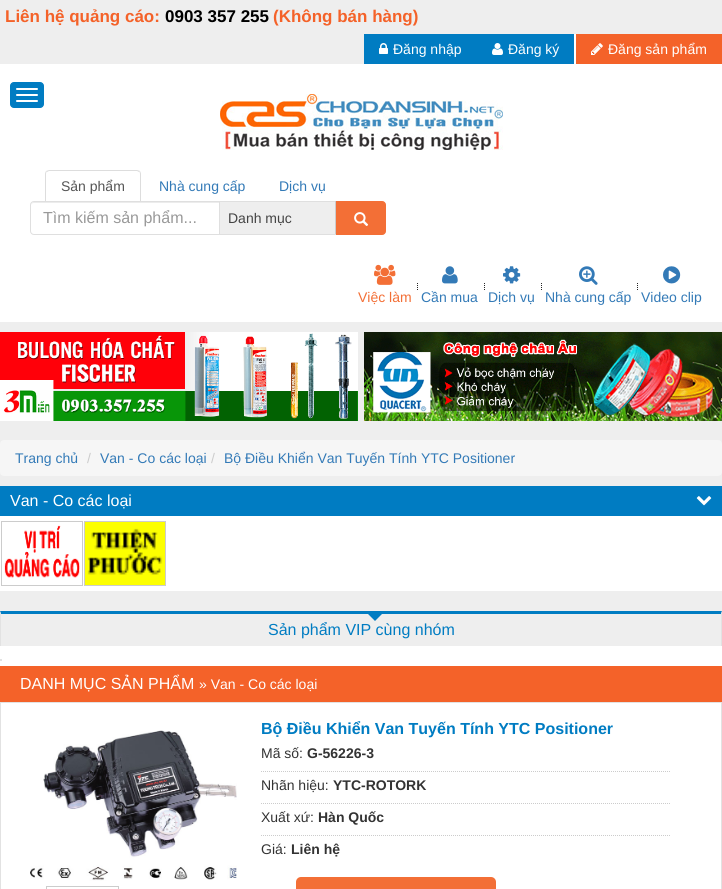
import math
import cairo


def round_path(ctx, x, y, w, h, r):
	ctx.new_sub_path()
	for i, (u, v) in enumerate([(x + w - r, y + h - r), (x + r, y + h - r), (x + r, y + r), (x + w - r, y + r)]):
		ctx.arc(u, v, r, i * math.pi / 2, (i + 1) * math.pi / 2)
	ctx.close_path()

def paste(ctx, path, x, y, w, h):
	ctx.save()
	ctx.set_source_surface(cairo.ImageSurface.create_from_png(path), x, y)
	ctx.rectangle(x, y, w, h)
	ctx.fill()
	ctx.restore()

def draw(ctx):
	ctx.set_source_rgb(0.933, 0.933, 0.933)
	ctx.paint()
	ctx.select_font_face('Liberation Sans', cairo.FONT_SLANT_NORMAL, cairo.FONT_WEIGHT_BOLD)
	ctx.set_font_size(17)
	ctx.set_source_rgb(0.957, 0.384, 0.161)
	ctx.move_to(5, 22)
	ctx.show_text('Liên hệ quảng cáo:')
	ctx.set_source_rgb(0, 0, 0)
	ctx.move_to(165, 22)
	ctx.show_text('0903 357 255')
	ctx.set_source_rgb(0.957, 0.384, 0.161)
	ctx.move_to(273, 22)
	ctx.show_text('(Không bán hàng)')
	ctx.set_source_rgb(0, 0.486, 0.761)
	ctx.rectangle(364, 34, 210, 30)
	ctx.fill()
	paste(ctx, 'media/1.png', 379, 43, 9, 11)
	ctx.select_font_face('Liberation Sans')
	ctx.set_font_size(14)
	ctx.set_source_rgb(1, 1, 1)
	ctx.move_to(393, 54)
	ctx.show_text('Đăng nhập')
	paste(ctx, 'media/2.png', 492, 43, 11, 12)
	ctx.move_to(508, 54)
	ctx.show_text('Đăng ký')
	ctx.set_source_rgb(0.957, 0.384, 0.161)
	ctx.rectangle(576, 34, 146, 30)
	ctx.fill()
	ctx.set_source_rgb(1, 1, 1)
	ctx.rectangle(574, 34, 2, 30)
	ctx.fill()
	paste(ctx, 'media/3.png', 591, 43, 12, 12)
	ctx.move_to(608, 54)
	ctx.show_text('Đăng sản phẩm')
	ctx.rectangle(0, 64, 722, 258)
	ctx.fill()
	ctx.set_source_rgb(0, 0.486, 0.761)
	round_path(ctx, 10.5, 82.5, 33, 25, 3.5)
	ctx.fill_preserve()
	ctx.set_line_width(1)
	ctx.stroke()
	ctx.set_source_rgb(1, 1, 1)
	round_path(ctx, 16, 88, 22, 2, 1)
	ctx.fill()
	round_path(ctx, 16, 94, 22, 2, 1)
	ctx.fill()
	round_path(ctx, 16, 100, 22, 2, 1)
	ctx.fill()
	paste(ctx, 'media/4.png', 220, 94, 283, 56)
	ctx.set_source_rgb(0.867, 0.867, 0.867)
	ctx.new_path()
	ctx.move_to(49, 170)
	ctx.line_to(46, 171)
	ctx.line_to(47, 172)
	ctx.line_to(49, 171)
	ctx.line_to(137, 171)
	ctx.line_to(139, 172)
	ctx.line_to(140, 171)
	ctx.line_to(137, 170)
	ctx.close_path()
	ctx.fill()
	ctx.new_path()
	ctx.move_to(141, 202)
	ctx.line_to(141, 174)
	ctx.curve_to(141, 173, 140.5, 172, 140, 171)
	ctx.line_to(139, 172)
	ctx.curve_to(140, 172, 140, 173, 140, 174)
	ctx.line_to(140, 201)
	ctx.close_path()
	ctx.fill()
	ctx.new_path()
	ctx.move_to(45, 202)
	ctx.line_to(46, 201)
	ctx.line_to(46, 174)
	ctx.curve_to(46, 173, 46, 172, 47, 172)
	ctx.line_to(46, 171)
	ctx.curve_to(45.5, 172, 45, 173, 45, 174)
	ctx.close_path()
	ctx.fill()
	ctx.set_source_rgb(0.333, 0.333, 0.333)
	ctx.move_to(61, 191)
	ctx.show_text('Sản phẩm')
	ctx.set_source_rgb(0.2, 0.478, 0.718)
	ctx.move_to(159, 191)
	ctx.show_text('Nhà cung cấp')
	ctx.move_to(279, 191)
	ctx.show_text('Dịch vụ')
	ctx.set_source_rgb(1, 1, 1)
	ctx.new_path()
	ctx.move_to(34, 201)
	ctx.line_to(220, 201)
	ctx.line_to(220, 235)
	ctx.line_to(34, 235)
	ctx.curve_to(32, 235, 30, 233, 30, 231)
	ctx.line_to(30, 205)
	ctx.curve_to(30, 203, 32, 201, 34, 201)
	ctx.close_path()
	ctx.fill()
	ctx.set_source_rgb(0.925, 0.925, 0.925)
	ctx.new_path()
	ctx.move_to(34, 203)
	ctx.line_to(219, 203)
	ctx.line_to(219, 202)
	ctx.line_to(34, 202)
	ctx.curve_to(32, 202, 31, 204, 31, 206)
	ctx.curve_to(31, 204, 32, 203, 34, 203)
	ctx.close_path()
	ctx.fill()
	ctx.new_path()
	ctx.move_to(34, 201.5)
	ctx.line_to(219.5, 201.5)
	ctx.line_to(219.5, 234.5)
	ctx.line_to(34, 234.5)
	ctx.curve_to(32, 234.5, 30.5, 233, 30.5, 231)
	ctx.line_to(30.5, 205)
	ctx.curve_to(30.5, 203, 32, 201.5, 34, 201.5)
	ctx.close_path()
	ctx.set_source_rgb(0.875, 0.875, 0.875)
	ctx.stroke()
	ctx.set_font_size(16)
	ctx.set_source_rgb(0.6, 0.6, 0.6)
	ctx.move_to(43, 223)
	ctx.show_text('Tìm kiếm sản phẩm...')
	ctx.set_source_rgb(0.933, 0.933, 0.933)
	ctx.rectangle(220, 202, 115, 32)
	ctx.fill()
	ctx.set_source_rgb(0.875, 0.875, 0.875)
	ctx.rectangle(220, 201, 116, 1)
	ctx.fill()
	ctx.set_source_rgb(0.8, 0.8, 0.8)
	ctx.rectangle(335, 201, 1, 34)
	ctx.fill()
	ctx.set_source_rgb(0.875, 0.875, 0.875)
	ctx.rectangle(220, 234, 116, 1)
	ctx.fill()
	ctx.set_font_size(14)
	ctx.set_source_rgb(0.267, 0.267, 0.267)
	ctx.move_to(228, 223)
	ctx.show_text('Danh mục')
	ctx.set_source_rgb(0.953, 0.435, 0.212)
	ctx.new_path()
	ctx.move_to(336.5, 201.5)
	ctx.line_to(382, 201.5)
	ctx.curve_to(384, 201.5, 385.5, 203, 385.5, 205)
	ctx.line_to(385.5, 231)
	ctx.curve_to(385.5, 233, 384, 234.5, 382, 234.5)
	ctx.line_to(336.5, 234.5)
	ctx.close_path()
	ctx.fill_preserve()
	ctx.stroke()
	paste(ctx, 'media/5.png', 354, 212, 15, 14)
	paste(ctx, 'media/6.png', 374, 264, 22, 21)
	ctx.move_to(358, 302)
	ctx.show_text('Việc làm')
	paste(ctx, 'media/7.png', 417, 283, 1, 7)
	paste(ctx, 'media/8.png', 442, 266, 16, 18)
	ctx.set_source_rgb(0.2, 0.478, 0.718)
	ctx.move_to(421, 302)
	ctx.show_text('Cần mua')
	paste(ctx, 'media/7.png', 484, 283, 1, 7)
	paste(ctx, 'media/9.png', 503, 266, 18, 18)
	ctx.move_to(488, 302)
	ctx.show_text('Dịch vụ')
	paste(ctx, 'media/7.png', 541, 283, 1, 7)
	paste(ctx, 'media/10.png', 579, 266, 19, 19)
	ctx.move_to(545, 302)
	ctx.show_text('Nhà cung cấp')
	paste(ctx, 'media/7.png', 637, 283, 1, 7)
	paste(ctx, 'media/11.png', 663, 266, 18, 18)
	ctx.move_to(641, 302)
	ctx.show_text('Video clip')
	paste(ctx, 'media/12.png', 0, 332, 358, 89)
	paste(ctx, 'media/13.png', 364, 332, 358, 89)
	ctx.set_source_rgb(0.961, 0.961, 0.961)
	round_path(ctx, 0, 440, 722, 36, 4)
	ctx.fill()
	ctx.set_source_rgb(0.2, 0.478, 0.718)
	ctx.move_to(15, 463)
	ctx.show_text('Trang chủ')
	ctx.set_source_rgb(0.8, 0.8, 0.8)
	ctx.move_to(87, 463)
	ctx.show_text('/')
	ctx.set_source_rgb(0.2, 0.478, 0.718)
	ctx.move_to(100, 463)
	ctx.show_text('Van - Co các loại')
	ctx.set_source_rgb(0.8, 0.8, 0.8)
	ctx.move_to(211, 463)
	ctx.show_text('/')
	ctx.set_source_rgb(0.2, 0.478, 0.718)
	ctx.move_to(224, 463)
	ctx.show_text('Bộ Điều Khiển Van Tuyến Tính YTC Positioner')
	ctx.set_source_rgb(1, 1, 1)
	ctx.rectangle(0, 516, 722, 75)
	ctx.fill()
	ctx.set_source_rgb(0, 0.486, 0.761)
	ctx.rectangle(0, 486, 722, 30)
	ctx.fill()
	ctx.set_font_size(16)
	ctx.set_source_rgb(1, 1, 1)
	ctx.move_to(10, 506)
	ctx.show_text('Van - Co các loại')
	paste(ctx, 'media/14.png', 696, 496, 16, 10)
	ctx.rectangle(1.5, 521.5, 81, 64)
	ctx.set_source_rgb(0.8, 0.8, 0.8)
	ctx.stroke()
	paste(ctx, 'media/15.png', 4, 525, 76, 54)
	ctx.rectangle(84.5, 521.5, 81, 64)
	ctx.stroke()
	paste(ctx, 'media/16.png', 85, 522, 80, 63)
	ctx.set_source_rgb(1, 1, 1)
	ctx.rectangle(0, 646, 722, 20)
	ctx.fill()
	ctx.set_source_rgb(0, 0.486, 0.761)
	ctx.new_path()
	ctx.move_to(0, 611)
	ctx.line_to(722, 611)
	ctx.line_to(721, 614)
	ctx.line_to(1, 614)
	ctx.close_path()
	ctx.fill()
	ctx.set_source_rgb(0.886, 0.886, 0.886)
	ctx.new_path()
	ctx.move_to(722, 611)
	ctx.line_to(722, 646)
	ctx.line_to(721, 646)
	ctx.line_to(721, 614)
	ctx.close_path()
	ctx.fill()
	ctx.new_path()
	ctx.move_to(0, 646)
	ctx.line_to(0, 611)
	ctx.line_to(1, 614)
	ctx.line_to(1, 646)
	ctx.close_path()
	ctx.fill()
	ctx.set_source_rgb(0, 0.486, 0.761)
	ctx.new_path()
	ctx.move_to(368, 614)
	ctx.line_to(382, 614)
	ctx.line_to(375, 621)
	ctx.close_path()
	ctx.fill()
	ctx.move_to(268, 635)
	ctx.show_text('Sản phẩm VIP cùng nhóm')
	ctx.set_source_rgb(0.886, 0.886, 0.886)
	ctx.rectangle(0, 659, 2, 2)
	ctx.fill()
	ctx.set_source_rgb(0.957, 0.384, 0.161)
	ctx.rectangle(0, 666, 722, 36)
	ctx.fill()
	ctx.set_source_rgb(1, 1, 1)
	ctx.move_to(20, 689)
	ctx.show_text('DANH MỤC SẢN PHẨM')
	ctx.set_font_size(14)
	ctx.move_to(199, 689)
	ctx.show_text('» Van - Co các loại')
	ctx.rectangle(0.5, 702.5, 721, 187)
	ctx.set_source_rgb(0.886, 0.886, 0.886)
	ctx.stroke()
	ctx.set_source_rgb(1, 1, 1)
	ctx.rectangle(1, 703, 720, 186)
	ctx.fill()
	paste(ctx, 'media/17.png', 30, 730, 207, 151)
	ctx.rectangle(46.5, 886.5, 72, 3)
	ctx.set_source_rgb(0.8, 0.8, 0.8)
	ctx.stroke()
	ctx.select_font_face('Liberation Sans', cairo.FONT_SLANT_NORMAL, cairo.FONT_WEIGHT_BOLD)
	ctx.set_font_size(16)
	ctx.set_source_rgb(0, 0.486, 0.761)
	ctx.move_to(261, 734)
	ctx.show_text('Bộ Điều Khiển Van Tuyến Tính YTC Positioner')
	ctx.select_font_face('Liberation Sans')
	ctx.set_font_size(14)
	ctx.set_source_rgb(0.2, 0.2, 0.2)
	ctx.move_to(261, 758)
	ctx.show_text('Mã số:')
	ctx.select_font_face('Liberation Sans', cairo.FONT_SLANT_NORMAL, cairo.FONT_WEIGHT_BOLD)
	ctx.move_to(307, 758)
	ctx.show_text('G-56226-3')
	ctx.new_path()
	ctx.move_to(261, 771.5)
	ctx.line_to(671, 771.5)
	ctx.set_source_rgb(0.8, 0.8, 0.8)
	ctx.set_dash([1, 1])
	ctx.stroke()
	ctx.select_font_face('Liberation Sans')
	ctx.set_source_rgb(0.2, 0.2, 0.2)
	ctx.move_to(261, 790)
	ctx.show_text('Nhãn hiệu:')
	ctx.select_font_face('Liberation Sans', cairo.FONT_SLANT_NORMAL, cairo.FONT_WEIGHT_BOLD)
	ctx.move_to(333, 790)
	ctx.show_text('YTC-ROTORK')
	ctx.new_path()
	ctx.move_to(261, 803.5)
	ctx.line_to(671, 803.5)
	ctx.set_source_rgb(0.8, 0.8, 0.8)
	ctx.stroke()
	ctx.select_font_face('Liberation Sans')
	ctx.set_source_rgb(0.2, 0.2, 0.2)
	ctx.move_to(261, 822)
	ctx.show_text('Xuất xứ:')
	ctx.select_font_face('Liberation Sans', cairo.FONT_SLANT_NORMAL, cairo.FONT_WEIGHT_BOLD)
	ctx.move_to(318, 822)
	ctx.show_text('Hàn Quốc')
	ctx.new_path()
	ctx.move_to(261, 835.5)
	ctx.line_to(671, 835.5)
	ctx.set_source_rgb(0.8, 0.8, 0.8)
	ctx.stroke()
	ctx.select_font_face('Liberation Sans')
	ctx.set_source_rgb(0.2, 0.2, 0.2)
	ctx.move_to(261, 854)
	ctx.show_text('Giá:')
	ctx.select_font_face('Liberation Sans', cairo.FONT_SLANT_NORMAL, cairo.FONT_WEIGHT_BOLD)
	ctx.move_to(291, 854)
	ctx.show_text('Liên hệ')
	ctx.set_source_rgb(0.953, 0.435, 0.212)
	round_path(ctx, 296, 877, 200, 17, 5)
	ctx.fill()


surface = cairo.ImageSurface(cairo.FORMAT_RGB24, 722, 889)
ctx = cairo.Context(surface)
options = cairo.FontOptions()
options.set_hint_metrics(cairo.HINT_METRICS_OFF)
options.set_hint_style(cairo.HINT_STYLE_NONE)
ctx.set_font_options(options)
ctx.set_miter_limit(4)
draw(ctx)
surface.write_to_png('image.png')
